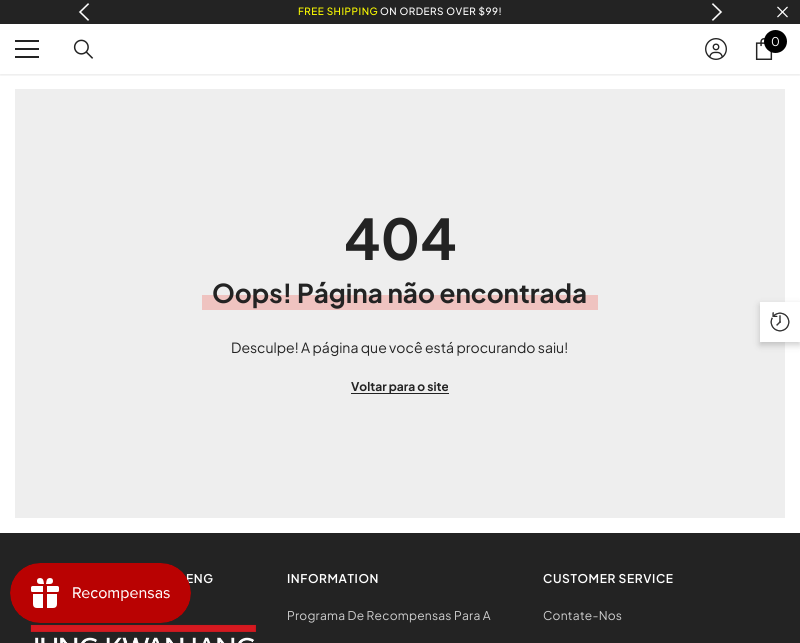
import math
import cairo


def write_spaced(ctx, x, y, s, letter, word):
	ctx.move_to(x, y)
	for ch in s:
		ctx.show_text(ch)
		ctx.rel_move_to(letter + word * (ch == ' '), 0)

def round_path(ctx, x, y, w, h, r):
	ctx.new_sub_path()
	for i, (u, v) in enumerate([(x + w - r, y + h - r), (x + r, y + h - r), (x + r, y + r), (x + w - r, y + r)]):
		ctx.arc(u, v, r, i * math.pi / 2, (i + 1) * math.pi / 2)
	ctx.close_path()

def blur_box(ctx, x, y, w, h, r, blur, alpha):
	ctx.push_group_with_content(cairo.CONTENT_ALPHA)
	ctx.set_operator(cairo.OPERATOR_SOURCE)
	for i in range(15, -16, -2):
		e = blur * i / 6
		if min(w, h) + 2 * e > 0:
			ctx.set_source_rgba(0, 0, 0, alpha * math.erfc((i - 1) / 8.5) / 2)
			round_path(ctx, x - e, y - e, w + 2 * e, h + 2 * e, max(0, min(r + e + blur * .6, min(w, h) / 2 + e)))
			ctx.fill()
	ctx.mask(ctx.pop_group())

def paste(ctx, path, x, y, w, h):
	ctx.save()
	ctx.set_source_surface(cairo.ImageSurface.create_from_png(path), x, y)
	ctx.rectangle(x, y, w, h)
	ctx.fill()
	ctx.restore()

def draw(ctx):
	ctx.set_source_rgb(1, 1, 1)
	ctx.paint()
	ctx.set_source_rgb(0.137, 0.137, 0.137)
	ctx.rectangle(0, 0, 800, 24)
	ctx.fill()
	paste(ctx, 'media/1.png', 78, 3, 12, 18)
	ctx.select_font_face('Plus Jakarta Sans Medium')
	ctx.set_font_size(10)
	ctx.set_source_rgb(1, 1, 0)
	write_spaced(ctx, 298, 15, 'FREE SHIPPING', 0.5, 0)
	ctx.set_source_rgb(1, 1, 1)
	write_spaced(ctx, 380, 15, 'ON ORDERS OVER $99!', 0.5, 0)
	paste(ctx, 'media/2.png', 711, 3, 12, 18)
	paste(ctx, 'media/3.png', 777, 6, 11, 12)
	ctx.save()
	ctx.rectangle(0, 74, 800, 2)
	ctx.clip()
	ctx.set_source_rgb(0, 0, 0)
	blur_box(ctx, 0, 25, 800, 50, 0, 1.5, 0.1)
	ctx.restore()
	ctx.set_source_rgb(0.137, 0.137, 0.137)
	ctx.rectangle(15, 48, 24, 2)
	ctx.rectangle(15, 40, 24, 2)
	ctx.rectangle(15, 56, 24, 2)
	ctx.fill()
	paste(ctx, 'media/4.png', 73, 39, 21, 20)
	paste(ctx, 'media/5.png', 705, 38, 22, 22)
	paste(ctx, 'media/6.png', 755, 38, 18, 22)
	ctx.set_source_rgb(0, 0, 0)
	ctx.arc(775.5, 41.5, 11.5, 0, 2 * math.pi)
	ctx.fill()
	ctx.select_font_face('Plus Jakarta Sans')
	ctx.set_font_size(12)
	ctx.set_source_rgb(1, 1, 1)
	ctx.move_to(771, 46)
	ctx.show_text('0')
	ctx.set_source_rgb(0.933, 0.933, 0.933)
	ctx.rectangle(15, 89, 770, 429)
	ctx.fill()
	ctx.select_font_face('Plus Jakarta Sans', cairo.FONT_SLANT_NORMAL, cairo.FONT_WEIGHT_BOLD)
	ctx.set_font_size(56)
	ctx.set_source_rgb(0.137, 0.137, 0.137)
	ctx.move_to(344, 260)
	ctx.show_text('404')
	ctx.set_source_rgb(0.937, 0.765, 0.753)
	ctx.rectangle(202, 295, 396, 15)
	ctx.fill()
	ctx.set_font_size(26)
	ctx.set_source_rgb(0.137, 0.137, 0.137)
	ctx.move_to(212, 303)
	ctx.show_text('Oops! Página não encontrada')
	ctx.select_font_face('Plus Jakarta Sans')
	ctx.set_font_size(14)
	ctx.move_to(231, 353)
	ctx.show_text('Desculpe! A página que você está procurando saiu!')
	ctx.rectangle(351, 393, 98, 1)
	ctx.fill()
	ctx.select_font_face('Plus Jakarta Sans', cairo.FONT_SLANT_NORMAL, cairo.FONT_WEIGHT_BOLD)
	ctx.set_font_size(12)
	ctx.move_to(351, 391)
	ctx.show_text('Voltar para o site')
	ctx.rectangle(0, 533, 800, 110)
	ctx.fill()
	ctx.select_font_face('Plus Jakarta Sans SemiBold')
	ctx.set_source_rgb(1, 1, 1)
	write_spaced(ctx, 186, 583, 'ENG', 0.6, 0)
	paste(ctx, 'media/7.png', 30, 624, 227, 19)
	write_spaced(ctx, 287, 583, 'INFORMATION', 0.6, 0)
	ctx.select_font_face('Plus Jakarta Sans')
	ctx.set_source_rgb(0.812, 0.812, 0.812)
	write_spaced(ctx, 287, 620, 'Programa De Recompensas Para A', 0.25, 0)
	ctx.select_font_face('Plus Jakarta Sans SemiBold')
	ctx.set_source_rgb(1, 1, 1)
	write_spaced(ctx, 543, 583, 'CUSTOMER SERVICE', 0.6, 0)
	ctx.select_font_face('Plus Jakarta Sans')
	ctx.set_source_rgb(0.812, 0.812, 0.812)
	write_spaced(ctx, 543, 620, 'Contate-Nos', 0.25, 0)
	ctx.set_source_rgb(0, 0, 0)
	blur_box(ctx, 760, 305, 40, 40, 0, 3.5, 0.2)
	ctx.set_source_rgb(1, 1, 1)
	ctx.rectangle(760, 302, 40, 40)
	ctx.fill()
	paste(ctx, 'media/8.png', 770, 312, 20, 20)
	paste(ctx, 'media/9.png', 10, 563, 181, 60)


surface = cairo.ImageSurface(cairo.FORMAT_RGB24, 800, 643)
ctx = cairo.Context(surface)
options = cairo.FontOptions()
options.set_hint_metrics(cairo.HINT_METRICS_OFF)
options.set_hint_style(cairo.HINT_STYLE_NONE)
ctx.set_font_options(options)
ctx.set_miter_limit(4)
draw(ctx)
surface.write_to_png('image.png')
